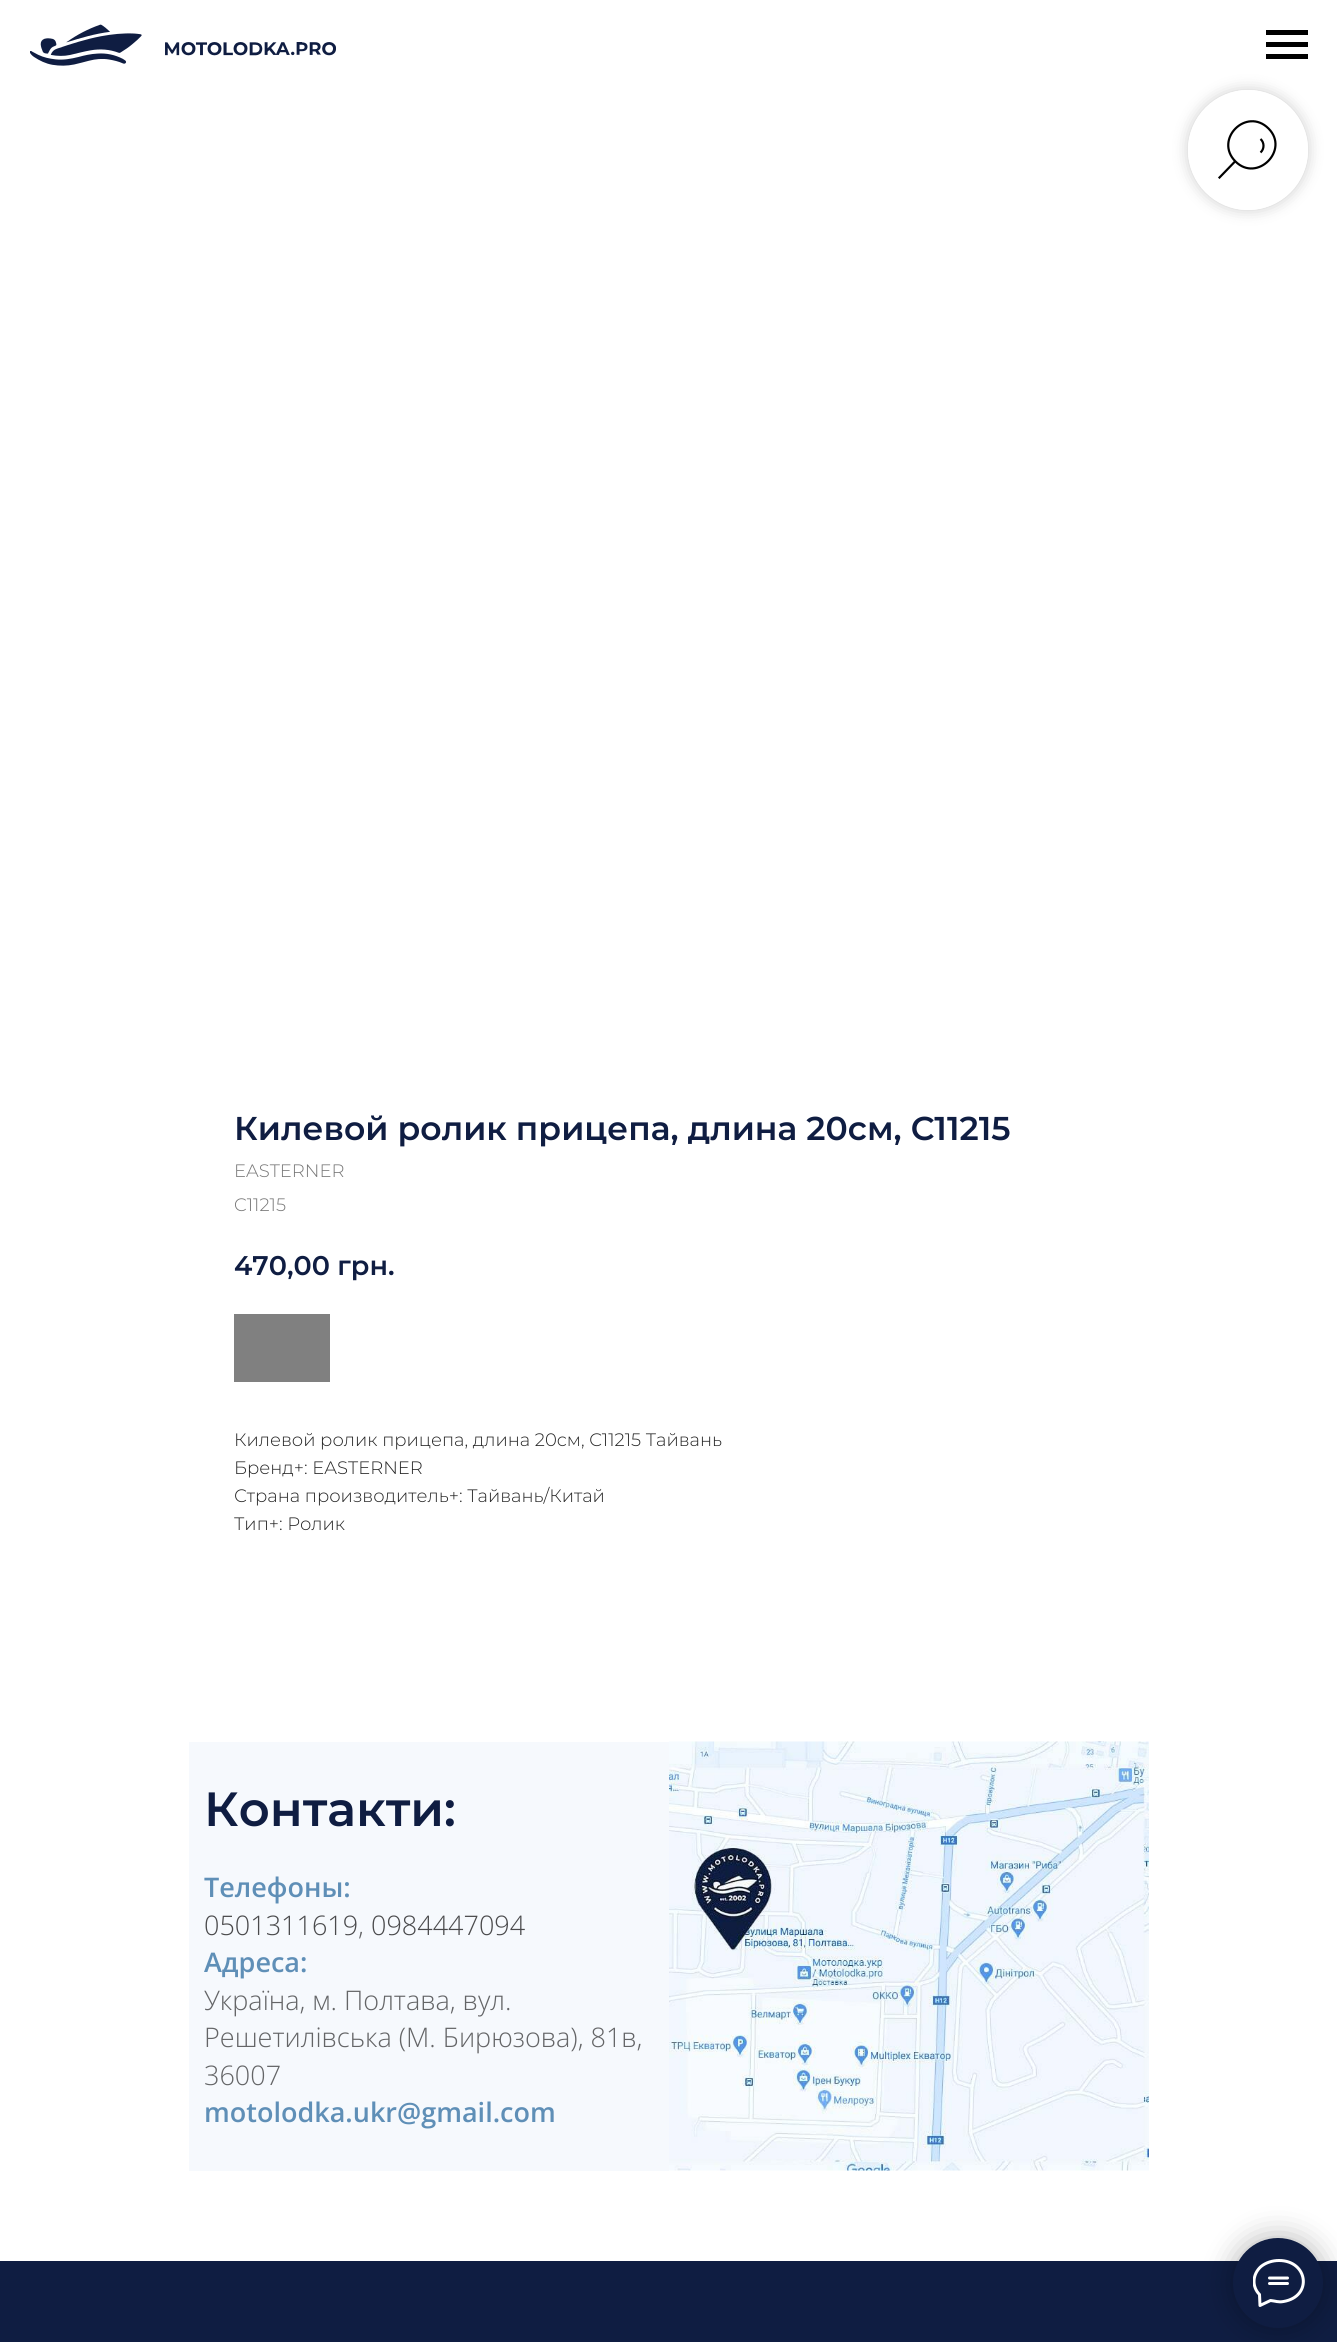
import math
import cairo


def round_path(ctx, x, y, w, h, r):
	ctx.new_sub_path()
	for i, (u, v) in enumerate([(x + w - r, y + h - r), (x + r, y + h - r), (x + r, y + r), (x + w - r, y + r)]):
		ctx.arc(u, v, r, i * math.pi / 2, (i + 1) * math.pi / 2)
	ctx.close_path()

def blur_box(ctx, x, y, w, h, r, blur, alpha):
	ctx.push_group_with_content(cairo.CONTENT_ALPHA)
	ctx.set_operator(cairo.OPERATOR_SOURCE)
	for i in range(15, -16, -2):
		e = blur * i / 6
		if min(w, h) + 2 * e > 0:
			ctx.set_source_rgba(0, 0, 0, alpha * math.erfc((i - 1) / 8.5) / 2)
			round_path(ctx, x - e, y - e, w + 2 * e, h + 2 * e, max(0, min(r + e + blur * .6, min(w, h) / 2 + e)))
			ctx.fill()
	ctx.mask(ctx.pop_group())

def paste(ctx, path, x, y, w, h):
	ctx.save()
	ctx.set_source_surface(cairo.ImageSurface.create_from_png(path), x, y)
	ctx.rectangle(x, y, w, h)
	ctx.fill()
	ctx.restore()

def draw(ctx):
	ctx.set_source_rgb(1, 1, 1)
	ctx.paint()
	paste(ctx, 'media/1.png', 30, 24, 306, 42)
	ctx.set_source_rgb(0, 0, 0)
	ctx.rectangle(1266, 30, 42, 5)
	ctx.rectangle(1266, 42, 42, 5)
	ctx.rectangle(1266, 54, 42, 5)
	ctx.fill()
	ctx.select_font_face('Montserrat SemiBold')
	ctx.set_font_size(33)
	ctx.set_source_rgb(0.059, 0.114, 0.259)
	ctx.move_to(234, 1140)
	ctx.show_text('Килевой ролик прицепа, длина 20см, C11215')
	ctx.select_font_face('Montserrat Light')
	ctx.set_font_size(18)
	ctx.set_source_rgb(0.467, 0.467, 0.467)
	ctx.move_to(234, 1177)
	ctx.show_text('EASTERNER')
	ctx.move_to(234, 1211)
	ctx.show_text('C11215')
	ctx.select_font_face('Montserrat SemiBold')
	ctx.set_font_size(27)
	ctx.set_source_rgb(0.059, 0.114, 0.259)
	ctx.move_to(234, 1275)
	ctx.show_text('470,00 грн.')
	ctx.set_source_rgb(0.502, 0.502, 0.502)
	ctx.rectangle(234, 1314, 96, 68)
	ctx.fill()
	ctx.select_font_face('Montserrat Light')
	ctx.set_font_size(18)
	ctx.set_source_rgb(0.149, 0.149, 0.149)
	for x, y, s in [
		(234, 1446, 'Килевой ролик прицепа, длина 20см, C11215 Тайвань'),
		(234, 1474, 'Бренд+: EASTERNER'),
		(234, 1502, 'Страна производитель+: Тайвань/Китай'),
		(234, 1530, 'Тип+: Ролик'),
	]:
		ctx.move_to(x, y)
		ctx.show_text(s)
	ctx.save()
	ctx.set_fill_rule(cairo.FILL_RULE_EVEN_ODD)
	ctx.new_path()
	ctx.move_to(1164, 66)
	ctx.line_to(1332, 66)
	ctx.line_to(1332, 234)
	ctx.line_to(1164, 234)
	ctx.close_path()
	ctx.move_to(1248, 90)
	ctx.curve_to(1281, 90, 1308, 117, 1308, 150)
	ctx.curve_to(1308, 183, 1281, 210, 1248, 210)
	ctx.curve_to(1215, 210, 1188, 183, 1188, 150)
	ctx.curve_to(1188, 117, 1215, 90, 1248, 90)
	ctx.close_path()
	ctx.clip()
	ctx.set_source_rgb(0, 0, 0)
	blur_box(ctx, 1188, 90, 120, 120, 60, 7.5, 0.2)
	ctx.restore()
	ctx.set_source_rgba(1, 1, 1, 0.8)
	ctx.arc(1248, 150, 60, 0, 2 * math.pi)
	ctx.fill()
	ctx.new_path()
	ctx.move_to(1234.5, 162)
	ctx.line_to(1219.5, 177.5)
	ctx.set_source_rgb(0, 0, 0)
	ctx.set_line_width(2.2)
	ctx.set_line_cap(cairo.LINE_CAP_SQUARE)
	ctx.stroke()
	ctx.new_path()
	ctx.move_to(1268.5, 128.5)
	ctx.curve_to(1290, 150, 1257, 183, 1235.5, 161.5)
	ctx.curve_to(1213.5, 139.5, 1246.5, 106.5, 1268.5, 128.5)
	ctx.close_path()
	ctx.move_to(1260.5, 139)
	ctx.curve_to(1264.5, 142.5, 1264.5, 149, 1260.5, 152.5)
	ctx.set_line_cap(cairo.LINE_CAP_BUTT)
	ctx.stroke()
	ctx.set_source_rgb(0.961, 0.973, 0.992)
	ctx.rectangle(189, 1742, 480, 429)
	ctx.fill()
	ctx.select_font_face('Montserrat SemiBold')
	ctx.set_font_size(48)
	ctx.set_source_rgb(0.059, 0.114, 0.259)
	ctx.move_to(204, 1826)
	ctx.show_text('Контакти:')
	ctx.select_font_face('Open Sans SemiBold')
	ctx.set_font_size(27)
	ctx.set_source_rgb(0.373, 0.561, 0.718)
	ctx.move_to(204, 1897)
	ctx.show_text('Телефоны:')
	ctx.select_font_face('Open Sans Light')
	ctx.set_source_rgb(0.29, 0.29, 0.298)
	ctx.move_to(204, 1935)
	ctx.show_text('0501311619')
	ctx.set_source_rgb(0.392, 0.396, 0.404)
	ctx.move_to(358, 1935)
	ctx.show_text(',')
	ctx.set_source_rgb(0.29, 0.29, 0.298)
	ctx.move_to(371, 1935)
	ctx.show_text('0984447094')
	ctx.select_font_face('Open Sans SemiBold')
	ctx.set_source_rgb(0.373, 0.561, 0.718)
	ctx.move_to(204, 1972)
	ctx.show_text('Адреса:')
	ctx.select_font_face('Open Sans Light')
	ctx.set_source_rgb(0.392, 0.396, 0.404)
	for x, y, s in [
		(204, 2010, 'Україна, м. Полтава, вул.'),
		(204, 2047, 'Решетилівська (М. Бирюзова), 81в,'),
		(204, 2085, '36007'),
	]:
		ctx.move_to(x, y)
		ctx.show_text(s)
	ctx.select_font_face('Open Sans SemiBold')
	ctx.set_source_rgb(0.373, 0.561, 0.718)
	ctx.move_to(204, 2122)
	ctx.show_text('motolodka.ukr@gmail.com')
	paste(ctx, 'media/2.png', 669, 1741, 480, 430)
	ctx.set_source_rgb(0.059, 0.114, 0.259)
	ctx.rectangle(0, 2261, 1337, 81)
	ctx.fill()
	ctx.set_source_rgb(0, 0, 0)
	blur_box(ctx, 1233, 2238, 90, 90, 45, 15, 0.3)
	ctx.set_source_rgb(0.059, 0.114, 0.259)
	ctx.arc(1278, 2283, 45, 0, 2 * math.pi)
	ctx.fill()
	ctx.save()
	ctx.rectangle(1253, 2259, 52, 48)
	ctx.clip()
	ctx.new_path()
	ctx.move_to(1269.5, 2278)
	ctx.line_to(1287.5, 2278)
	ctx.move_to(1269.5, 2283.5)
	ctx.line_to(1287.5, 2283.5)
	ctx.move_to(1259.5, 2294.5)
	ctx.curve_to(1251.5, 2286.5, 1252.5, 2274, 1261, 2266.5)
	ctx.curve_to(1266, 2262.5, 1272.5, 2260.5, 1279, 2260.5)
	ctx.curve_to(1308, 2260.5, 1313, 2296.5, 1283.5, 2301.5)
	ctx.curve_to(1278.5, 2302.5, 1275.5, 2301, 1270.5, 2300.5)
	ctx.line_to(1260, 2305.5)
	ctx.close_path()
	ctx.set_source_rgb(1, 1, 1)
	ctx.set_line_width(3)
	ctx.set_line_cap(cairo.LINE_CAP_ROUND)
	ctx.set_line_join(cairo.LINE_JOIN_ROUND)
	ctx.stroke()
	ctx.restore()


surface = cairo.ImageSurface(cairo.FORMAT_RGB24, 1337, 2342)
ctx = cairo.Context(surface)
options = cairo.FontOptions()
options.set_hint_metrics(cairo.HINT_METRICS_OFF)
options.set_hint_style(cairo.HINT_STYLE_NONE)
ctx.set_font_options(options)
ctx.set_miter_limit(4)
draw(ctx)
surface.write_to_png('image.png')
